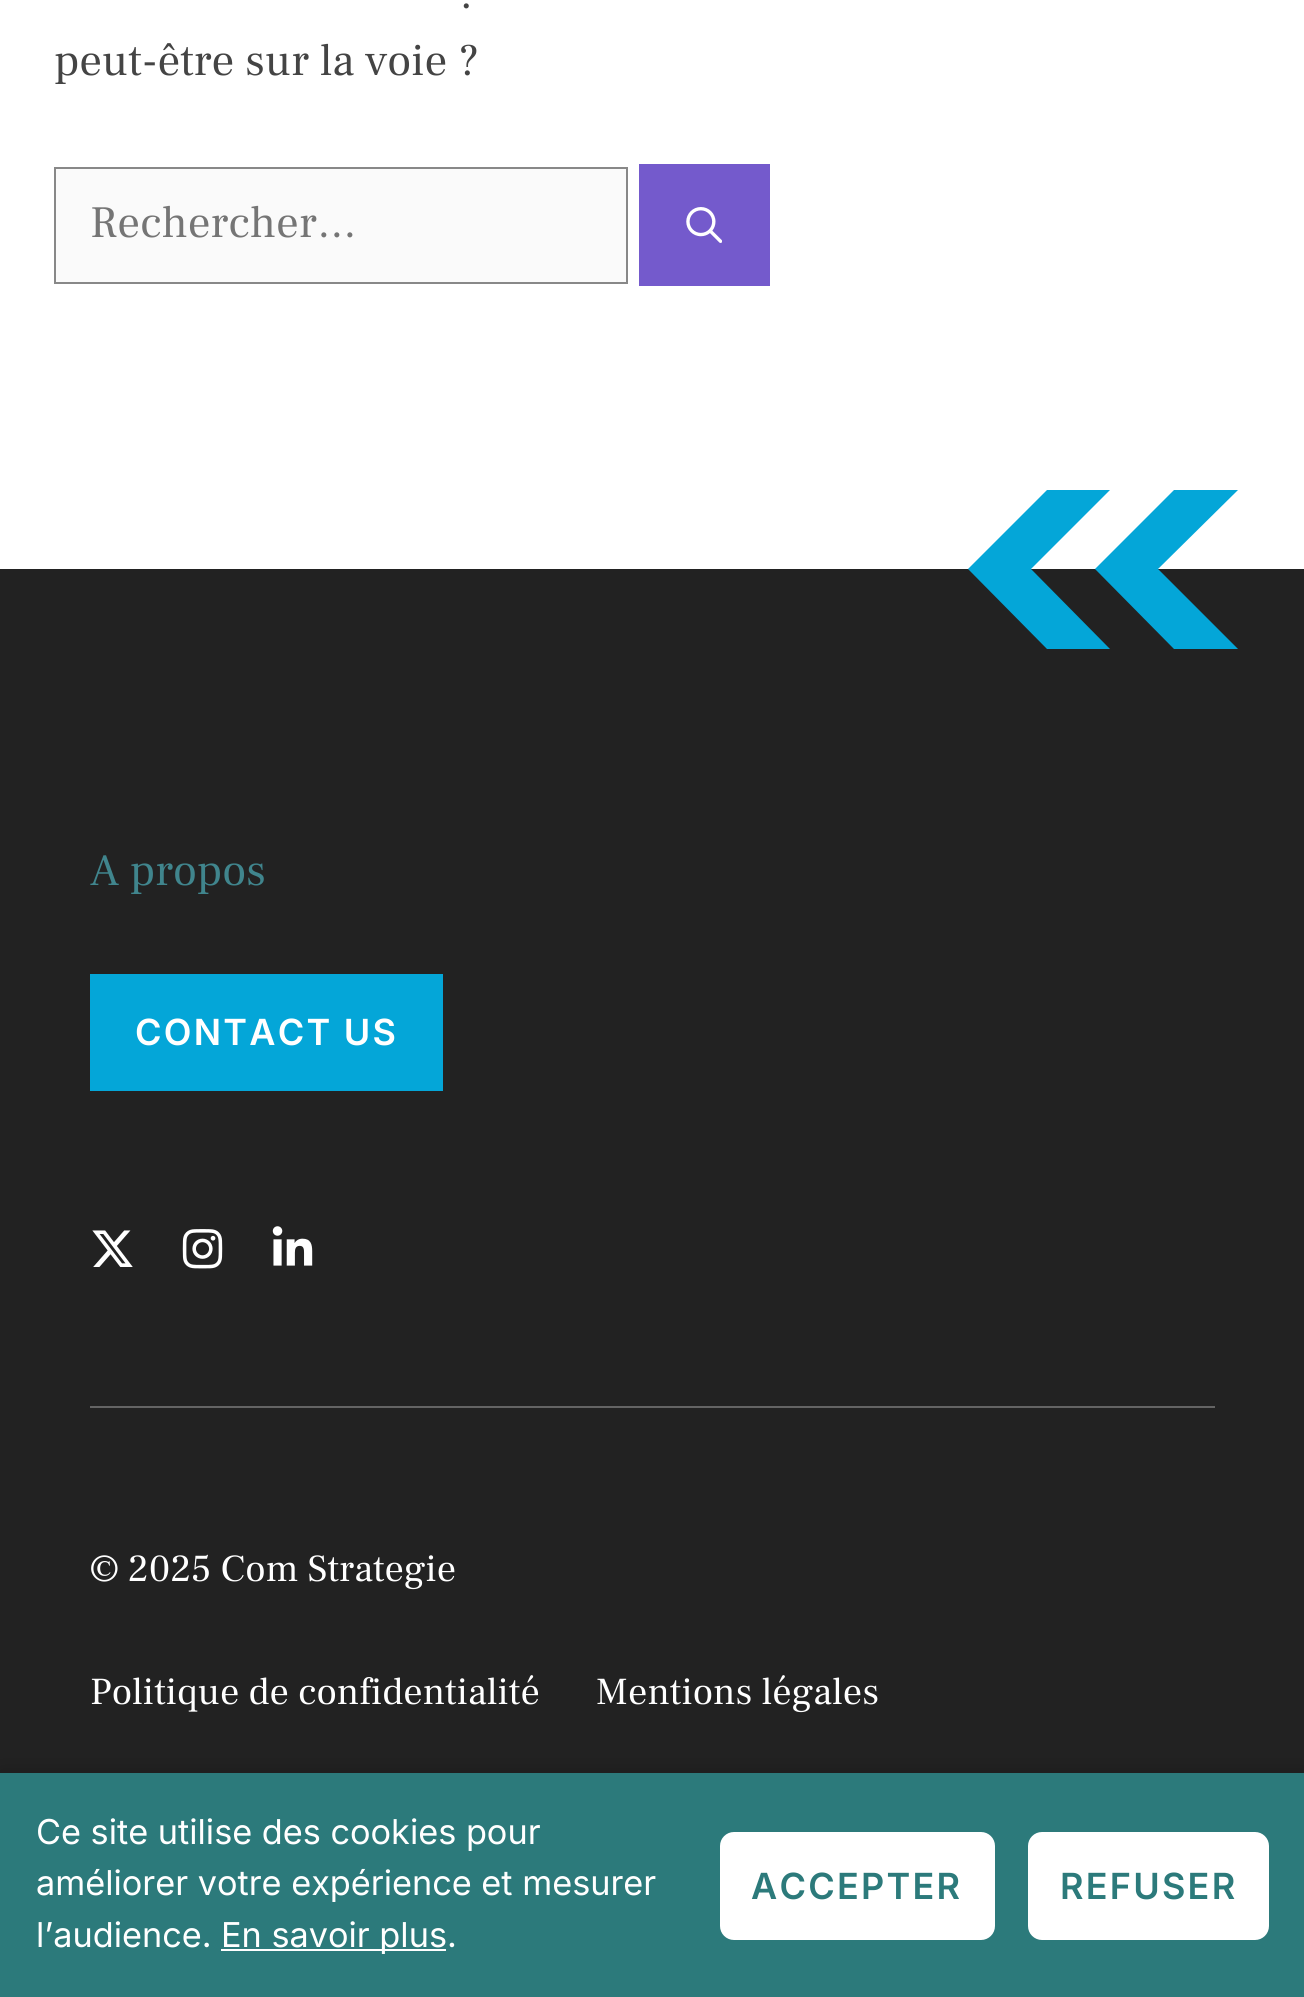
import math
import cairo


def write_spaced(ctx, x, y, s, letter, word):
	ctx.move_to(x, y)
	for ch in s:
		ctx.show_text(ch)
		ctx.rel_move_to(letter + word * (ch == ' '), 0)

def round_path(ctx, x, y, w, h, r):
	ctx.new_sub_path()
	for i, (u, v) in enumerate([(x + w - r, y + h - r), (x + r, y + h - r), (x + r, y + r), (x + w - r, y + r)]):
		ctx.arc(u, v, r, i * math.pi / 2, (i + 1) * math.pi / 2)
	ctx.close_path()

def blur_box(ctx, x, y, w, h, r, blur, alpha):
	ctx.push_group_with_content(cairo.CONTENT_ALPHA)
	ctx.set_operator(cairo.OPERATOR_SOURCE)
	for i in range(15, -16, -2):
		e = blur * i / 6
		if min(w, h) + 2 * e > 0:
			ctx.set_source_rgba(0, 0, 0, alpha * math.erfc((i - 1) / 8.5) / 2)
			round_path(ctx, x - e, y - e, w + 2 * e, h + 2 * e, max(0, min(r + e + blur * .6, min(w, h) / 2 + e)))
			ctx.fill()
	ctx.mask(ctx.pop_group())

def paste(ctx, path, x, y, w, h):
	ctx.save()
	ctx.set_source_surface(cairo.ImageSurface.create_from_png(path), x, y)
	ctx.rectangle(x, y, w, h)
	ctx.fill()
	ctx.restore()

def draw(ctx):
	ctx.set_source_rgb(1, 1, 1)
	ctx.paint()
	ctx.select_font_face('Frank Ruhl Libre')
	ctx.set_font_size(45)
	ctx.set_source_rgb(0.267, 0.267, 0.267)
	ctx.move_to(460, 8)
	ctx.show_text('.')
	ctx.move_to(54, 75)
	ctx.show_text('peut-être sur la voie ?')
	ctx.set_source_rgb(0.98, 0.98, 0.98)
	ctx.rectangle(55, 168, 572, 115)
	ctx.fill_preserve()
	ctx.set_source_rgb(0.533, 0.533, 0.533)
	ctx.stroke()
	ctx.set_source_rgb(0.459, 0.459, 0.459)
	ctx.move_to(90, 237)
	ctx.show_text('Rechercher…')
	ctx.set_source_rgb(0.455, 0.353, 0.8)
	ctx.rectangle(639, 164, 131, 122)
	ctx.fill()
	paste(ctx, 'media/1.png', 686, 207, 36, 36)
	ctx.set_source_rgb(0.133, 0.133, 0.133)
	ctx.rectangle(0, 569, 1304, 1204)
	ctx.fill()
	ctx.set_source_rgb(0.016, 0.651, 0.847)
	ctx.new_path()
	ctx.move_to(1031, 569)
	ctx.line_to(1110, 490)
	ctx.line_to(1047, 490)
	ctx.line_to(968, 569)
	ctx.line_to(1047, 649)
	ctx.line_to(1110, 649)
	ctx.close_path()
	ctx.fill()
	ctx.new_path()
	ctx.move_to(1158, 569)
	ctx.line_to(1238, 490)
	ctx.line_to(1174, 490)
	ctx.line_to(1095, 569)
	ctx.line_to(1174, 649)
	ctx.line_to(1238, 649)
	ctx.close_path()
	ctx.fill()
	ctx.set_source_rgb(0.251, 0.522, 0.553)
	ctx.move_to(90, 885)
	ctx.show_text('A propos')
	ctx.set_source_rgb(0.016, 0.651, 0.847)
	ctx.rectangle(90, 974, 353, 117)
	ctx.fill()
	ctx.select_font_face('Inter SemiBold')
	ctx.set_font_size(36)
	ctx.set_source_rgb(1, 1, 1)
	write_spaced(ctx, 135, 1045, 'CONTACT US', 2.25, 0)
	paste(ctx, 'media/2.png', 92, 1230, 41, 37)
	paste(ctx, 'media/3.png', 182, 1229, 41, 40)
	paste(ctx, 'media/4.png', 272, 1226, 41, 40)
	ctx.set_source_rgb(0.392, 0.392, 0.392)
	ctx.rectangle(90, 1406, 1125, 2)
	ctx.fill()
	ctx.select_font_face('Frank Ruhl Libre')
	ctx.set_font_size(38.25)
	ctx.set_source_rgb(1, 1, 1)
	for x, y, s in [
		(90, 1581, '© 2025 Com Strategie'),
		(90, 1704, 'Politique de confidentialité'),
		(596, 1704, 'Mentions légales'),
	]:
		ctx.move_to(x, y)
		ctx.show_text(s)
	ctx.set_source_rgb(0, 0, 0)
	blur_box(ctx, 0, 1769, 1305, 225, 0, 9, 0.15)
	ctx.set_source_rgb(0.173, 0.478, 0.482)
	ctx.rectangle(0, 1773, 1304, 224)
	ctx.fill()
	ctx.select_font_face('Inter')
	ctx.set_font_size(34.25)
	ctx.set_source_rgb(1, 1, 1)
	for x, y, s in [
		(36, 1844, 'Ce site utilise des cookies pour'),
		(36, 1895, 'améliorer votre expérience et mesurer'),
		(36, 1947, 'l’audience.'),
	]:
		ctx.move_to(x, y)
		ctx.show_text(s)
	ctx.rectangle(221, 1949, 225, 2)
	ctx.fill()
	ctx.move_to(221, 1947)
	ctx.show_text('En savoir plus.')
	round_path(ctx, 720, 1832, 275, 108, 14)
	ctx.fill()
	ctx.select_font_face('Inter SemiBold')
	ctx.set_font_size(36)
	ctx.set_source_rgb(0.173, 0.478, 0.482)
	write_spaced(ctx, 751, 1899, 'ACCEPTER', 2.25, 0)
	ctx.set_source_rgb(1, 1, 1)
	round_path(ctx, 1028, 1832, 241, 108, 14)
	ctx.fill()
	ctx.set_source_rgb(0.173, 0.478, 0.482)
	write_spaced(ctx, 1060, 1899, 'REFUSER', 2.25, 0)


surface = cairo.ImageSurface(cairo.FORMAT_RGB24, 1304, 1997)
ctx = cairo.Context(surface)
options = cairo.FontOptions()
options.set_hint_metrics(cairo.HINT_METRICS_OFF)
options.set_hint_style(cairo.HINT_STYLE_NONE)
ctx.set_font_options(options)
ctx.set_miter_limit(4)
draw(ctx)
surface.write_to_png('image.png')
